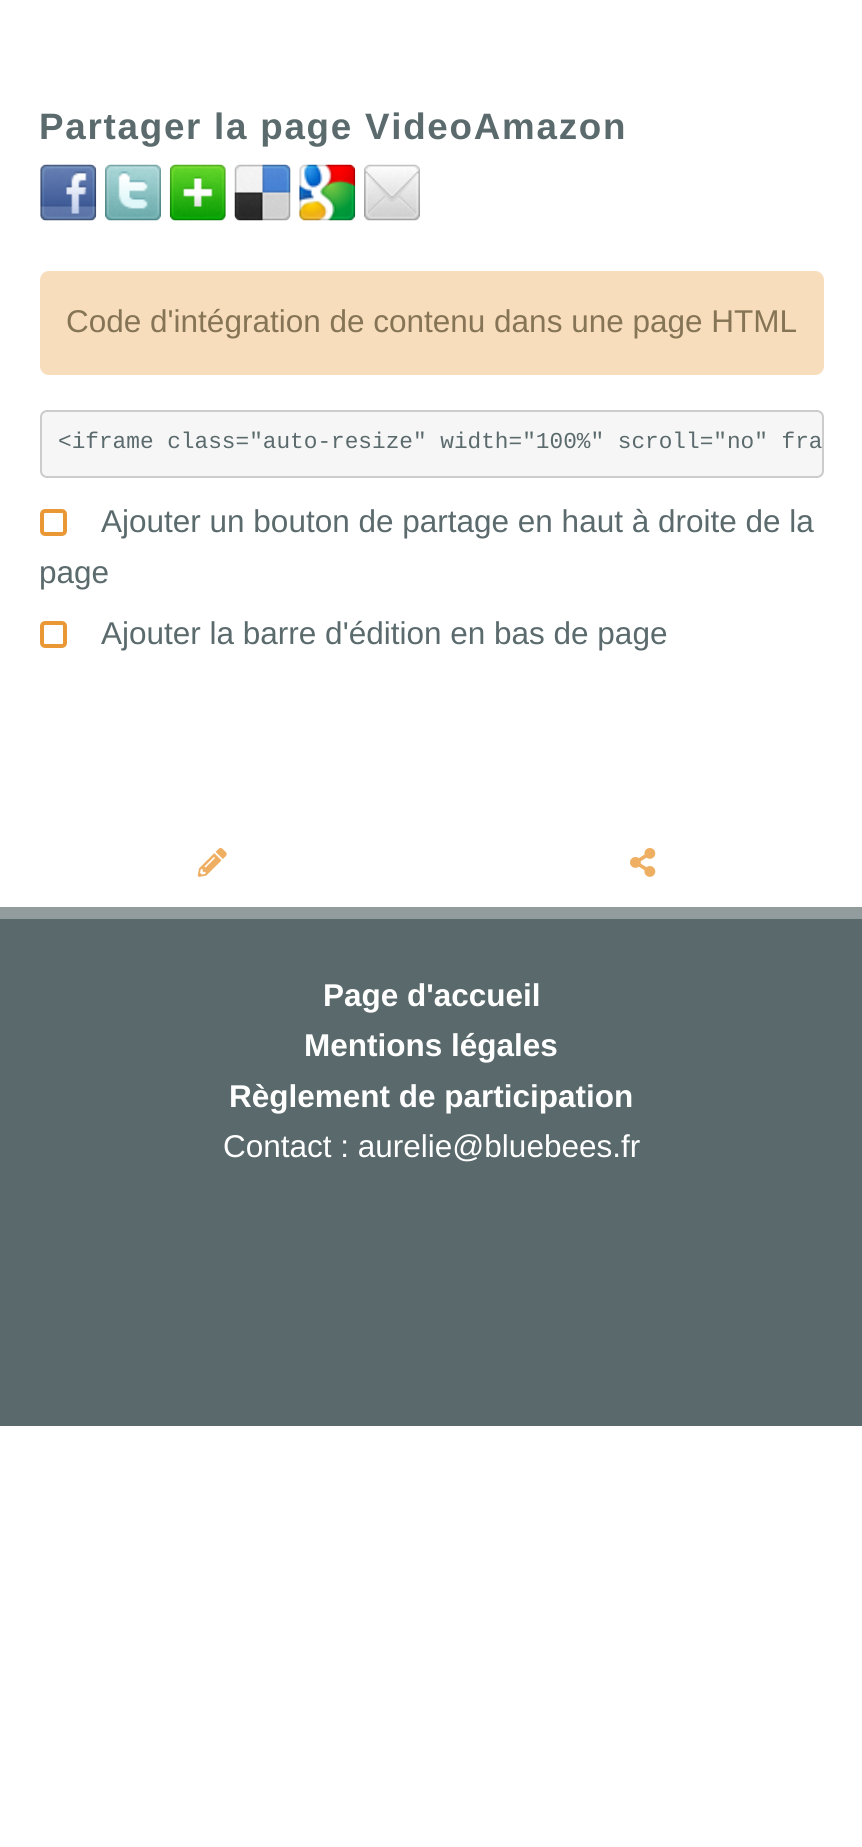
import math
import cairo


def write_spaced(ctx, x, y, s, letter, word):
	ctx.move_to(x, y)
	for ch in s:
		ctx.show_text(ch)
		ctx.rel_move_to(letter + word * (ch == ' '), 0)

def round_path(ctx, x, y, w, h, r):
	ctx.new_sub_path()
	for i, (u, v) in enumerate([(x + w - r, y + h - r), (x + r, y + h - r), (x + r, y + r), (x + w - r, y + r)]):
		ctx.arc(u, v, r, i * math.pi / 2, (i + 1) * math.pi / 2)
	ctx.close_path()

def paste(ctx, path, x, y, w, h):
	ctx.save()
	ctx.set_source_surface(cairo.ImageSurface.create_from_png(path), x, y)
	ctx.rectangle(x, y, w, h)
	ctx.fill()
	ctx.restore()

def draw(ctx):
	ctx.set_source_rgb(1, 1, 1)
	ctx.paint()
	ctx.select_font_face('Liberation Sans', cairo.FONT_SLANT_NORMAL, cairo.FONT_WEIGHT_BOLD)
	ctx.set_font_size(36.75)
	ctx.set_source_rgb(0.357, 0.416, 0.424)
	write_spaced(ctx, 39, 139, 'Partager la page VideoAmazon', 1.75, 0)
	paste(ctx, 'media/1.png', 40, 164, 57, 57)
	paste(ctx, 'media/2.png', 105, 164, 56, 57)
	paste(ctx, 'media/3.png', 169, 164, 57, 57)
	paste(ctx, 'media/4.png', 234, 164, 57, 57)
	paste(ctx, 'media/5.png', 299, 164, 57, 57)
	paste(ctx, 'media/6.png', 364, 164, 56, 57)
	ctx.select_font_face('Liberation Sans')
	ctx.set_font_size(31.5)
	ctx.move_to(66, 332)
	ctx.show_text('Code d\'intégration de contenu dans une page HTML')
	ctx.set_source_rgba(0.902, 0.549, 0.118, 0.3)
	round_path(ctx, 40, 271, 784, 104, 9)
	ctx.fill()
	ctx.set_source_rgb(0.961, 0.961, 0.961)
	round_path(ctx, 41, 411, 782, 66, 6)
	ctx.fill_preserve()
	ctx.set_source_rgb(0.8, 0.8, 0.8)
	ctx.stroke()
	ctx.select_font_face('Liberation Mono')
	ctx.set_font_size(22.75)
	ctx.set_source_rgb(0.357, 0.416, 0.424)
	ctx.move_to(58, 448)
	ctx.show_text('<iframe class="auto-resize" width="100%" scroll="no" fra')
	round_path(ctx, 42, 511, 23, 23, 3)
	ctx.set_source_rgb(0.914, 0.596, 0.208)
	ctx.set_line_width(4)
	ctx.stroke()
	ctx.select_font_face('Liberation Sans')
	ctx.set_font_size(31.5)
	ctx.set_source_rgb(0.357, 0.416, 0.424)
	ctx.move_to(101, 532)
	ctx.show_text('Ajouter un bouton de partage en haut à droite de la')
	ctx.move_to(39, 583)
	ctx.show_text('page')
	round_path(ctx, 42, 623, 23, 23, 3)
	ctx.set_source_rgb(0.914, 0.596, 0.208)
	ctx.stroke()
	ctx.set_source_rgb(0.357, 0.416, 0.424)
	ctx.move_to(101, 644)
	ctx.show_text('Ajouter la barre d\'édition en bas de page')
	paste(ctx, 'media/7.png', 197, 848, 30, 29)
	paste(ctx, 'media/8.png', 630, 848, 26, 29)
	ctx.set_source_rgb(0.573, 0.612, 0.616)
	ctx.rectangle(0, 907, 862, 12)
	ctx.fill()
	ctx.set_source_rgb(0.353, 0.412, 0.42)
	ctx.rectangle(0, 919, 862, 507)
	ctx.fill()
	ctx.select_font_face('Liberation Sans', cairo.FONT_SLANT_NORMAL, cairo.FONT_WEIGHT_BOLD)
	ctx.set_source_rgb(1, 1, 1)
	for x, y, s in [
		(323, 1006, 'Page d\'accueil'),
		(304, 1056, 'Mentions légales'),
		(229, 1107, 'Règlement de participation'),
	]:
		ctx.move_to(x, y)
		ctx.show_text(s)
	ctx.select_font_face('Liberation Sans')
	ctx.move_to(223, 1157)
	ctx.show_text('Contact : aurelie@bluebees.fr')


surface = cairo.ImageSurface(cairo.FORMAT_RGB24, 862, 1847)
ctx = cairo.Context(surface)
options = cairo.FontOptions()
options.set_hint_metrics(cairo.HINT_METRICS_OFF)
options.set_hint_style(cairo.HINT_STYLE_NONE)
ctx.set_font_options(options)
ctx.set_miter_limit(4)
draw(ctx)
surface.write_to_png('image.png')
